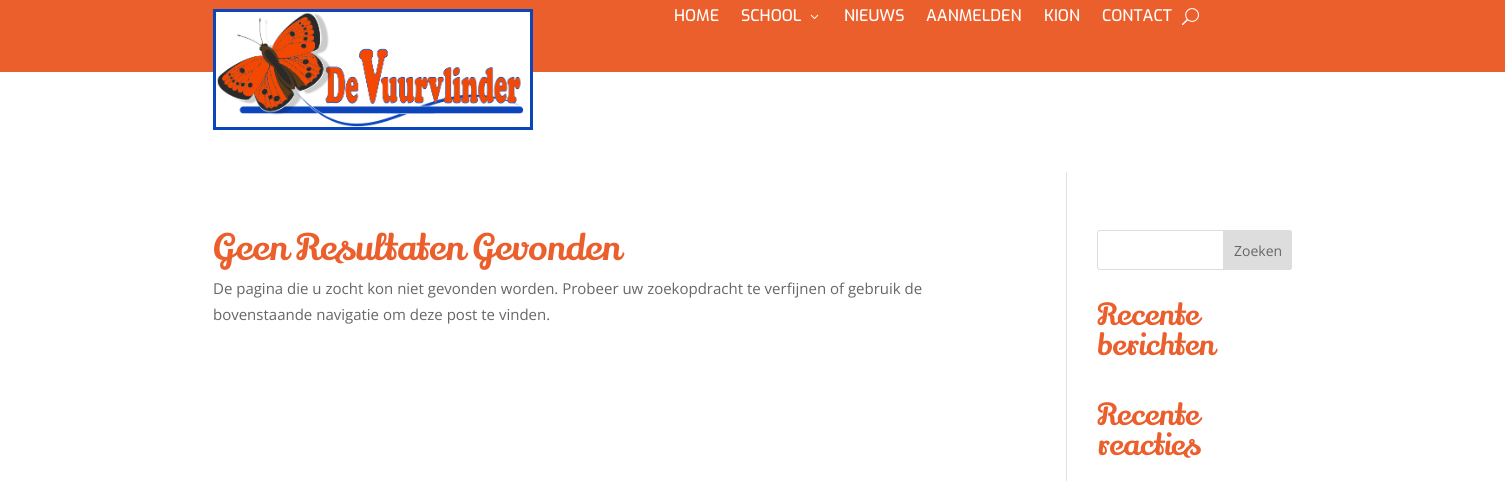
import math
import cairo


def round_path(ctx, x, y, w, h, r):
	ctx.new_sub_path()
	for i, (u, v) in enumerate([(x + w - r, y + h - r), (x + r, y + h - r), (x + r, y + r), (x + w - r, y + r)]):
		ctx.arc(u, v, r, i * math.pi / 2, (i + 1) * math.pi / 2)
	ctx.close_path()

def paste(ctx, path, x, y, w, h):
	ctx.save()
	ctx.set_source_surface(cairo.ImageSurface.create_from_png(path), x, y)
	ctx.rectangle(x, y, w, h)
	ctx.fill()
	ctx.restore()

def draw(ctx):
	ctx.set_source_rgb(1, 1, 1)
	ctx.paint()
	ctx.set_source_rgb(0.918, 0.373, 0.176)
	ctx.rectangle(0, 0, 1505, 72)
	ctx.fill()
	ctx.set_source_rgb(1, 1, 1)
	ctx.rectangle(216, 12, 314, 60)
	ctx.fill()
	ctx.rectangle(214.5, 10.5, 317, 118)
	ctx.set_source_rgb(0.043, 0.271, 0.733)
	ctx.set_line_width(3)
	ctx.stroke()
	paste(ctx, 'media/1.png', 217, 12, 307, 115)
	ctx.select_font_face('Exo Medium')
	ctx.set_font_size(16)
	ctx.set_source_rgb(1, 1, 1)
	ctx.move_to(674, 21)
	ctx.show_text('HOME')
	ctx.move_to(741, 21)
	ctx.show_text('SCHOOL')
	paste(ctx, 'media/2.png', 810, 14, 9, 5)
	for x, y, s in [
		(844, 21, 'NIEUWS'),
		(926, 21, 'AANMELDEN'),
		(1044, 21, 'KION'),
		(1102, 21, 'CONTACT'),
	]:
		ctx.move_to(x, y)
		ctx.show_text(s)
	paste(ctx, 'media/3.png', 1182, 8, 17, 18)
	ctx.set_source_rgb(0.886, 0.886, 0.886)
	ctx.rectangle(1066, 172, 1, 309)
	ctx.fill()
	ctx.select_font_face('Lily Script One')
	ctx.set_font_size(36)
	ctx.set_source_rgb(0.918, 0.373, 0.176)
	ctx.move_to(213, 260)
	ctx.show_text('Geen Resultaten Gevonden')
	ctx.select_font_face('Open Sans')
	ctx.set_font_size(15)
	ctx.set_source_rgb(0.4, 0.4, 0.4)
	ctx.move_to(213, 294)
	ctx.show_text('De pagina die u zocht kon niet gevonden worden. Probeer uw zoekopdracht te verfijnen of gebruik de')
	ctx.move_to(213, 320)
	ctx.show_text('bovenstaande navigatie om deze post te vinden.')
	round_path(ctx, 1097.5, 230.5, 194, 39, 2.5)
	ctx.set_source_rgb(0.867, 0.867, 0.867)
	ctx.set_line_width(1)
	ctx.stroke()
	ctx.new_path()
	ctx.move_to(1223.5, 230.5)
	ctx.line_to(1289, 230.5)
	ctx.curve_to(1290.5, 230.5, 1291.5, 231.5, 1291.5, 233)
	ctx.line_to(1291.5, 267)
	ctx.curve_to(1291.5, 268.5, 1290.5, 269.5, 1289, 269.5)
	ctx.line_to(1223.5, 269.5)
	ctx.close_path()
	ctx.fill_preserve()
	ctx.stroke()
	ctx.set_font_size(14)
	ctx.set_source_rgb(0.4, 0.4, 0.4)
	ctx.move_to(1234, 256)
	ctx.show_text('Zoeken')
	ctx.select_font_face('Lily Script One')
	ctx.set_font_size(30)
	ctx.set_source_rgb(0.918, 0.373, 0.176)
	for x, y, s in [
		(1097, 325, 'Recente'),
		(1097, 355, 'berichten'),
		(1097, 425, 'Recente'),
		(1097, 455, 'reacties'),
	]:
		ctx.move_to(x, y)
		ctx.show_text(s)


surface = cairo.ImageSurface(cairo.FORMAT_RGB24, 1505, 481)
ctx = cairo.Context(surface)
options = cairo.FontOptions()
options.set_hint_metrics(cairo.HINT_METRICS_OFF)
options.set_hint_style(cairo.HINT_STYLE_NONE)
ctx.set_font_options(options)
ctx.set_miter_limit(4)
draw(ctx)
surface.write_to_png('image.png')
